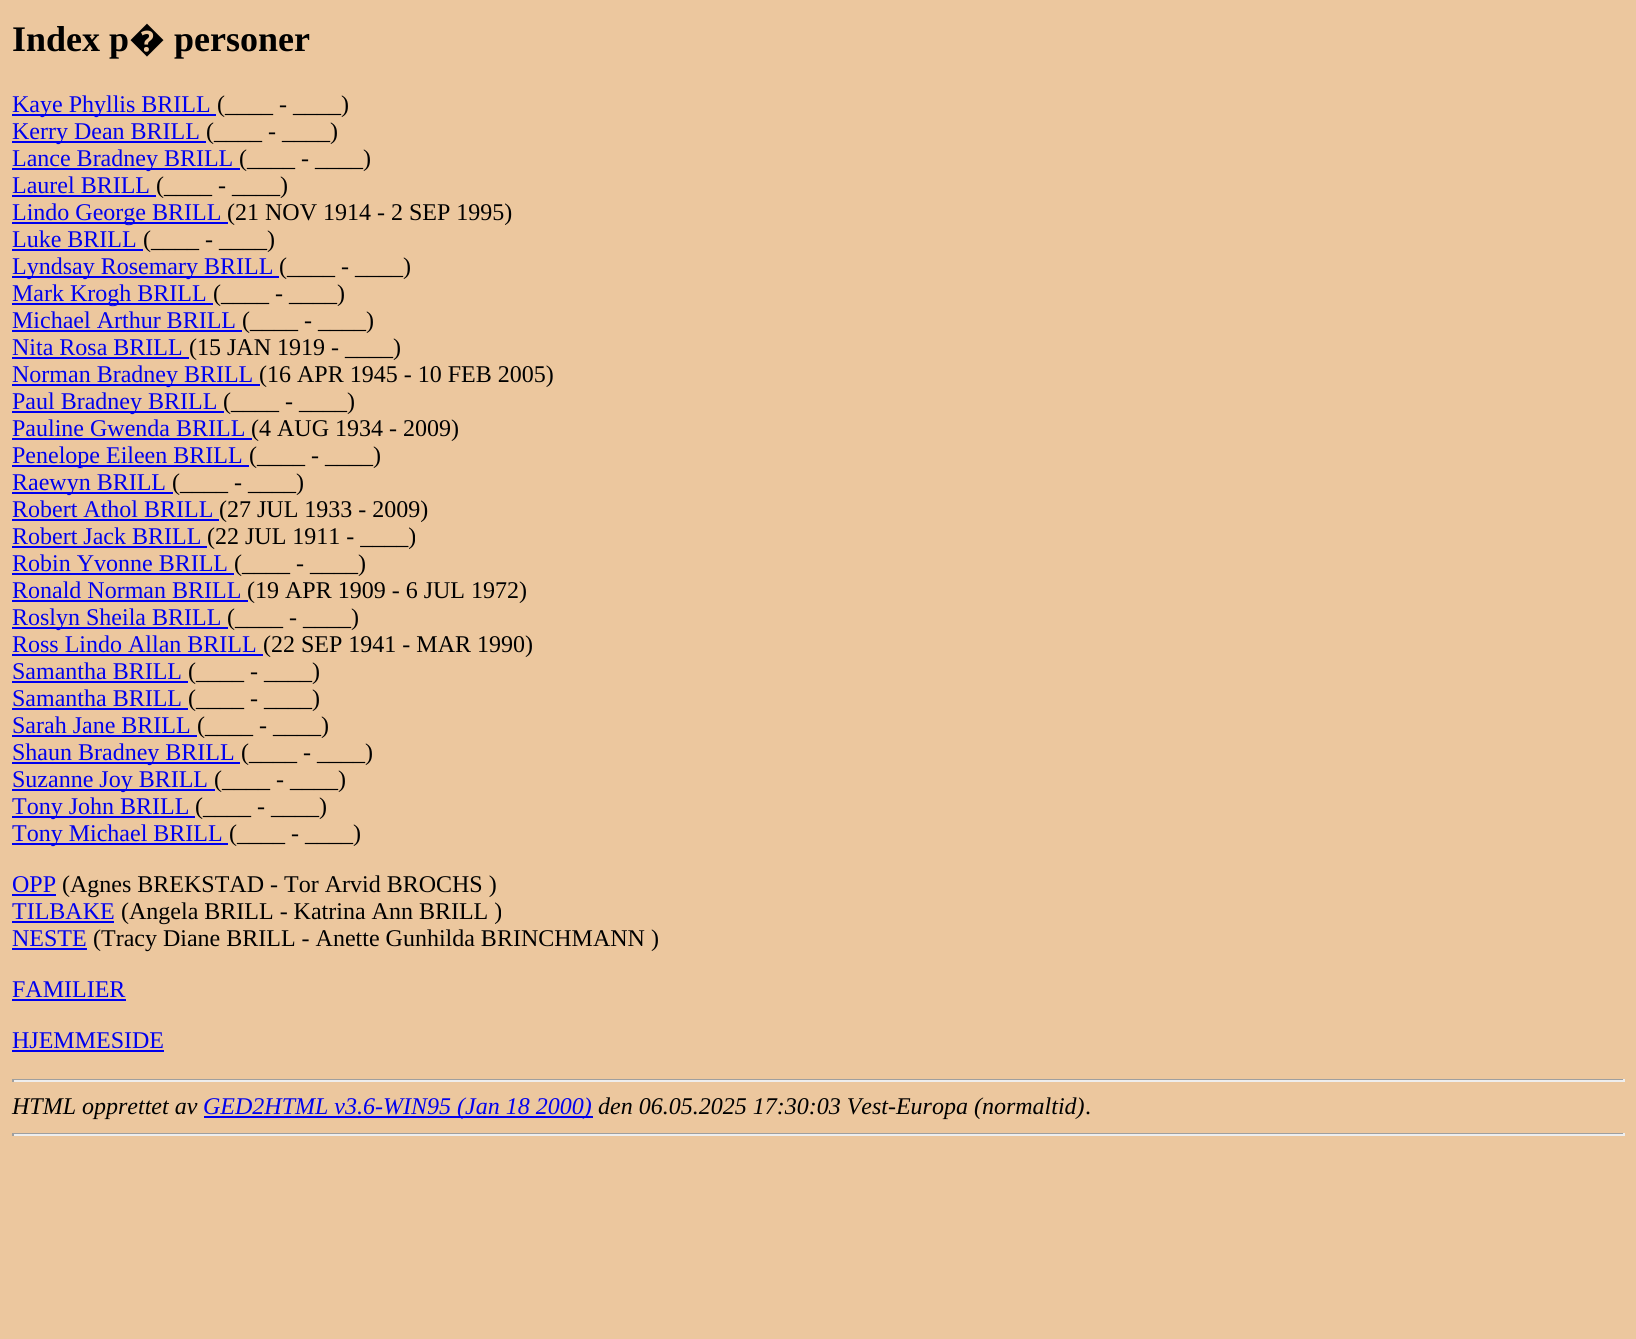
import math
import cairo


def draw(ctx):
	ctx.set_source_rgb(0.922, 0.78, 0.62)
	ctx.paint()
	ctx.select_font_face('Liberation Serif', cairo.FONT_SLANT_NORMAL, cairo.FONT_WEIGHT_BOLD)
	ctx.set_font_size(36)
	ctx.set_source_rgb(0, 0, 0)
	ctx.move_to(12, 51)
	ctx.show_text('Index p')
	ctx.select_font_face('Noto Sans', cairo.FONT_SLANT_NORMAL, cairo.FONT_WEIGHT_BOLD)
	ctx.move_to(129, 51)
	ctx.show_text('�')
	ctx.select_font_face('Liberation Serif', cairo.FONT_SLANT_NORMAL, cairo.FONT_WEIGHT_BOLD)
	ctx.move_to(174, 51)
	ctx.show_text('personer')
	ctx.set_source_rgb(0, 0, 0.933)
	ctx.rectangle(12, 114, 204, 2)
	ctx.fill()
	ctx.select_font_face('Liberation Serif')
	ctx.set_font_size(24)
	ctx.move_to(12, 112)
	ctx.show_text('Kaye Phyllis BRILL')
	ctx.set_source_rgb(0, 0, 0)
	ctx.move_to(217, 112)
	ctx.show_text('(____ - ____)')
	ctx.set_source_rgb(0, 0, 0.933)
	ctx.rectangle(12, 141, 194, 2)
	ctx.fill()
	ctx.move_to(12, 139)
	ctx.show_text('Kerry Dean BRILL')
	ctx.set_source_rgb(0, 0, 0)
	ctx.move_to(206, 139)
	ctx.show_text('(____ - ____)')
	ctx.set_source_rgb(0, 0, 0.933)
	ctx.rectangle(12, 168, 228, 2)
	ctx.fill()
	ctx.move_to(12, 166)
	ctx.show_text('Lance Bradney BRILL')
	ctx.set_source_rgb(0, 0, 0)
	ctx.move_to(239, 166)
	ctx.show_text('(____ - ____)')
	ctx.set_source_rgb(0, 0, 0.933)
	ctx.move_to(12, 193)
	ctx.show_text('Laurel BRILL')
	ctx.rectangle(12, 195, 144, 2)
	ctx.fill()
	ctx.set_source_rgb(0, 0, 0)
	ctx.move_to(156, 193)
	ctx.show_text('(____ - ____)')
	ctx.set_source_rgb(0, 0, 0.933)
	ctx.rectangle(12, 222, 216, 2)
	ctx.fill()
	ctx.move_to(12, 220)
	ctx.show_text('Lindo George BRILL')
	ctx.set_source_rgb(0, 0, 0)
	ctx.move_to(227, 220)
	ctx.show_text('(21 NOV 1914 - 2 SEP 1995)')
	ctx.set_source_rgb(0, 0, 0.933)
	ctx.move_to(12, 247)
	ctx.show_text('Luke BRILL')
	ctx.rectangle(12, 249, 131, 2)
	ctx.fill()
	ctx.set_source_rgb(0, 0, 0)
	ctx.move_to(143, 247)
	ctx.show_text('(____ - ____)')
	ctx.set_source_rgb(0, 0, 0.933)
	ctx.rectangle(12, 276, 267, 2)
	ctx.fill()
	ctx.move_to(12, 274)
	ctx.show_text('Lyndsay Rosemary BRILL')
	ctx.set_source_rgb(0, 0, 0)
	ctx.move_to(279, 274)
	ctx.show_text('(____ - ____)')
	ctx.set_source_rgb(0, 0, 0.933)
	ctx.rectangle(12, 303, 201, 2)
	ctx.fill()
	ctx.move_to(12, 301)
	ctx.show_text('Mark Krogh BRILL')
	ctx.set_source_rgb(0, 0, 0)
	ctx.move_to(213, 301)
	ctx.show_text('(____ - ____)')
	ctx.set_source_rgb(0, 0, 0.933)
	ctx.move_to(12, 328)
	ctx.show_text('Michael Arthur BRILL')
	ctx.rectangle(12, 330, 230, 2)
	ctx.fill()
	ctx.set_source_rgb(0, 0, 0)
	ctx.move_to(242, 328)
	ctx.show_text('(____ - ____)')
	ctx.set_source_rgb(0, 0, 0.933)
	ctx.move_to(12, 355)
	ctx.show_text('Nita Rosa BRILL')
	ctx.rectangle(12, 357, 177, 2)
	ctx.fill()
	ctx.set_source_rgb(0, 0, 0)
	ctx.move_to(189, 355)
	ctx.show_text('(15 JAN 1919 - ____)')
	ctx.set_source_rgb(0, 0, 0.933)
	ctx.rectangle(12, 384, 248, 2)
	ctx.fill()
	ctx.move_to(12, 382)
	ctx.show_text('Norman Bradney BRILL')
	ctx.set_source_rgb(0, 0, 0)
	ctx.move_to(259, 382)
	ctx.show_text('(16 APR 1945 - 10 FEB 2005)')
	ctx.set_source_rgb(0, 0, 0.933)
	ctx.rectangle(12, 411, 212, 2)
	ctx.fill()
	ctx.move_to(12, 409)
	ctx.show_text('Paul Bradney BRILL')
	ctx.set_source_rgb(0, 0, 0)
	ctx.move_to(223, 409)
	ctx.show_text('(____ - ____)')
	ctx.set_source_rgb(0, 0, 0.933)
	ctx.move_to(12, 436)
	ctx.show_text('Pauline Gwenda BRILL')
	ctx.rectangle(12, 438, 240, 2)
	ctx.fill()
	ctx.set_source_rgb(0, 0, 0)
	ctx.move_to(251, 436)
	ctx.show_text('(4 AUG 1934 - 2009)')
	ctx.set_source_rgb(0, 0, 0.933)
	ctx.rectangle(12, 465, 237, 2)
	ctx.fill()
	ctx.move_to(12, 463)
	ctx.show_text('Penelope Eileen BRILL')
	ctx.set_source_rgb(0, 0, 0)
	ctx.move_to(249, 463)
	ctx.show_text('(____ - ____)')
	ctx.set_source_rgb(0, 0, 0.933)
	ctx.rectangle(12, 492, 161, 2)
	ctx.fill()
	ctx.move_to(12, 490)
	ctx.show_text('Raewyn BRILL')
	ctx.set_source_rgb(0, 0, 0)
	ctx.move_to(172, 490)
	ctx.show_text('(____ - ____)')
	ctx.set_source_rgb(0, 0, 0.933)
	ctx.move_to(12, 517)
	ctx.show_text('Robert Athol BRILL')
	ctx.rectangle(12, 519, 207, 2)
	ctx.fill()
	ctx.set_source_rgb(0, 0, 0)
	ctx.move_to(219, 517)
	ctx.show_text('(27 JUL 1933 - 2009)')
	ctx.set_source_rgb(0, 0, 0.933)
	ctx.move_to(12, 544)
	ctx.show_text('Robert Jack BRILL')
	ctx.rectangle(12, 546, 195, 2)
	ctx.fill()
	ctx.set_source_rgb(0, 0, 0)
	ctx.move_to(207, 544)
	ctx.show_text('(22 JUL 1911 - ____)')
	ctx.set_source_rgb(0, 0, 0.933)
	ctx.move_to(12, 571)
	ctx.show_text('Robin Yvonne BRILL')
	ctx.rectangle(12, 573, 222, 2)
	ctx.fill()
	ctx.set_source_rgb(0, 0, 0)
	ctx.move_to(234, 571)
	ctx.show_text('(____ - ____)')
	ctx.set_source_rgb(0, 0, 0.933)
	ctx.move_to(12, 598)
	ctx.show_text('Ronald Norman BRILL')
	ctx.rectangle(12, 600, 236, 2)
	ctx.fill()
	ctx.set_source_rgb(0, 0, 0)
	ctx.move_to(247, 598)
	ctx.show_text('(19 APR 1909 - 6 JUL 1972)')
	ctx.set_source_rgb(0, 0, 0.933)
	ctx.rectangle(12, 627, 216, 2)
	ctx.fill()
	ctx.move_to(12, 625)
	ctx.show_text('Roslyn Sheila BRILL')
	ctx.set_source_rgb(0, 0, 0)
	ctx.move_to(227, 625)
	ctx.show_text('(____ - ____)')
	ctx.set_source_rgb(0, 0, 0.933)
	ctx.move_to(12, 652)
	ctx.show_text('Ross Lindo Allan BRILL')
	ctx.rectangle(12, 654, 251, 2)
	ctx.fill()
	ctx.set_source_rgb(0, 0, 0)
	ctx.move_to(263, 652)
	ctx.show_text('(22 SEP 1941 - MAR 1990)')
	ctx.set_source_rgb(0, 0, 0.933)
	ctx.move_to(12, 679)
	ctx.show_text('Samantha BRILL')
	ctx.rectangle(12, 681, 176, 2)
	ctx.fill()
	ctx.set_source_rgb(0, 0, 0)
	ctx.move_to(188, 679)
	ctx.show_text('(____ - ____)')
	ctx.set_source_rgb(0, 0, 0.933)
	ctx.move_to(12, 706)
	ctx.show_text('Samantha BRILL')
	ctx.rectangle(12, 708, 176, 2)
	ctx.fill()
	ctx.set_source_rgb(0, 0, 0)
	ctx.move_to(188, 706)
	ctx.show_text('(____ - ____)')
	ctx.set_source_rgb(0, 0, 0.933)
	ctx.move_to(12, 733)
	ctx.show_text('Sarah Jane BRILL')
	ctx.rectangle(12, 735, 185, 2)
	ctx.fill()
	ctx.set_source_rgb(0, 0, 0)
	ctx.move_to(197, 733)
	ctx.show_text('(____ - ____)')
	ctx.set_source_rgb(0, 0, 0.933)
	ctx.rectangle(12, 762, 228, 2)
	ctx.fill()
	ctx.move_to(12, 760)
	ctx.show_text('Shaun Bradney BRILL')
	ctx.set_source_rgb(0, 0, 0)
	ctx.move_to(241, 760)
	ctx.show_text('(____ - ____)')
	ctx.set_source_rgb(0, 0, 0.933)
	ctx.rectangle(12, 789, 203, 2)
	ctx.fill()
	ctx.move_to(12, 787)
	ctx.show_text('Suzanne Joy BRILL')
	ctx.set_source_rgb(0, 0, 0)
	ctx.move_to(214, 787)
	ctx.show_text('(____ - ____)')
	ctx.set_source_rgb(0, 0, 0.933)
	ctx.rectangle(12, 816, 183, 2)
	ctx.fill()
	ctx.move_to(12, 814)
	ctx.show_text('Tony John BRILL')
	ctx.set_source_rgb(0, 0, 0)
	ctx.move_to(195, 814)
	ctx.show_text('(____ - ____)')
	ctx.set_source_rgb(0, 0, 0.933)
	ctx.rectangle(12, 843, 216, 2)
	ctx.fill()
	ctx.move_to(12, 841)
	ctx.show_text('Tony Michael BRILL')
	ctx.set_source_rgb(0, 0, 0)
	ctx.move_to(229, 841)
	ctx.show_text('(____ - ____)')
	ctx.set_source_rgb(0, 0, 0.933)
	ctx.move_to(12, 892)
	ctx.show_text('OPP')
	ctx.rectangle(12, 894, 44, 2)
	ctx.fill()
	ctx.set_source_rgb(0, 0, 0)
	ctx.move_to(62, 892)
	ctx.show_text('(Agnes BREKSTAD - Tor Arvid BROCHS )')
	ctx.set_source_rgb(0, 0, 0.933)
	ctx.move_to(12, 919)
	ctx.show_text('TILBAKE')
	ctx.rectangle(12, 921, 102, 2)
	ctx.fill()
	ctx.set_source_rgb(0, 0, 0)
	ctx.move_to(121, 919)
	ctx.show_text('(Angela BRILL - Katrina Ann BRILL )')
	ctx.set_source_rgb(0, 0, 0.933)
	ctx.move_to(12, 946)
	ctx.show_text('NESTE')
	ctx.rectangle(12, 948, 75, 2)
	ctx.fill()
	ctx.set_source_rgb(0, 0, 0)
	ctx.move_to(93, 946)
	ctx.show_text('(Tracy Diane BRILL - Anette Gunhilda BRINCHMANN )')
	ctx.set_source_rgb(0, 0, 0.933)
	ctx.move_to(12, 997)
	ctx.show_text('FAMILIER')
	ctx.rectangle(12, 999, 114, 2)
	ctx.fill()
	ctx.move_to(12, 1048)
	ctx.show_text('HJEMMESIDE')
	ctx.rectangle(12, 1050, 152, 2)
	ctx.fill()
	ctx.set_source_rgb(0.624, 0.624, 0.624)
	ctx.rectangle(12, 1079, 1613, 1)
	ctx.fill()
	ctx.set_source_rgb(0.933, 0.933, 0.933)
	ctx.rectangle(1623, 1079, 2, 3)
	ctx.rectangle(12, 1080, 1613, 2)
	ctx.fill()
	ctx.set_source_rgb(0.624, 0.624, 0.624)
	ctx.rectangle(12, 1079, 2, 3)
	ctx.fill()
	ctx.select_font_face('Liberation Serif', cairo.FONT_SLANT_ITALIC)
	ctx.set_source_rgb(0, 0, 0)
	ctx.move_to(12, 1114)
	ctx.show_text('HTML opprettet av')
	ctx.set_source_rgb(0, 0, 0.933)
	ctx.rectangle(204, 1116, 389, 2)
	ctx.fill()
	ctx.move_to(203, 1114)
	ctx.show_text('GED2HTML v3.6-WIN95 (Jan 18 2000)')
	ctx.set_source_rgb(0, 0, 0)
	ctx.move_to(598, 1114)
	ctx.show_text('den 06.05.2025 17:30:03 Vest-Europa (normaltid)')
	ctx.select_font_face('Liberation Serif')
	ctx.move_to(1085, 1114)
	ctx.show_text('.')
	ctx.set_source_rgb(0.624, 0.624, 0.624)
	ctx.rectangle(12, 1133, 1613, 1)
	ctx.fill()
	ctx.set_source_rgb(0.933, 0.933, 0.933)
	ctx.rectangle(1623, 1133, 2, 3)
	ctx.rectangle(12, 1134, 1613, 2)
	ctx.fill()
	ctx.set_source_rgb(0.624, 0.624, 0.624)
	ctx.rectangle(12, 1133, 2, 3)
	ctx.fill()


surface = cairo.ImageSurface(cairo.FORMAT_RGB24, 1636, 1339)
ctx = cairo.Context(surface)
options = cairo.FontOptions()
options.set_hint_metrics(cairo.HINT_METRICS_OFF)
options.set_hint_style(cairo.HINT_STYLE_NONE)
ctx.set_font_options(options)
ctx.set_miter_limit(4)
draw(ctx)
surface.write_to_png('image.png')
